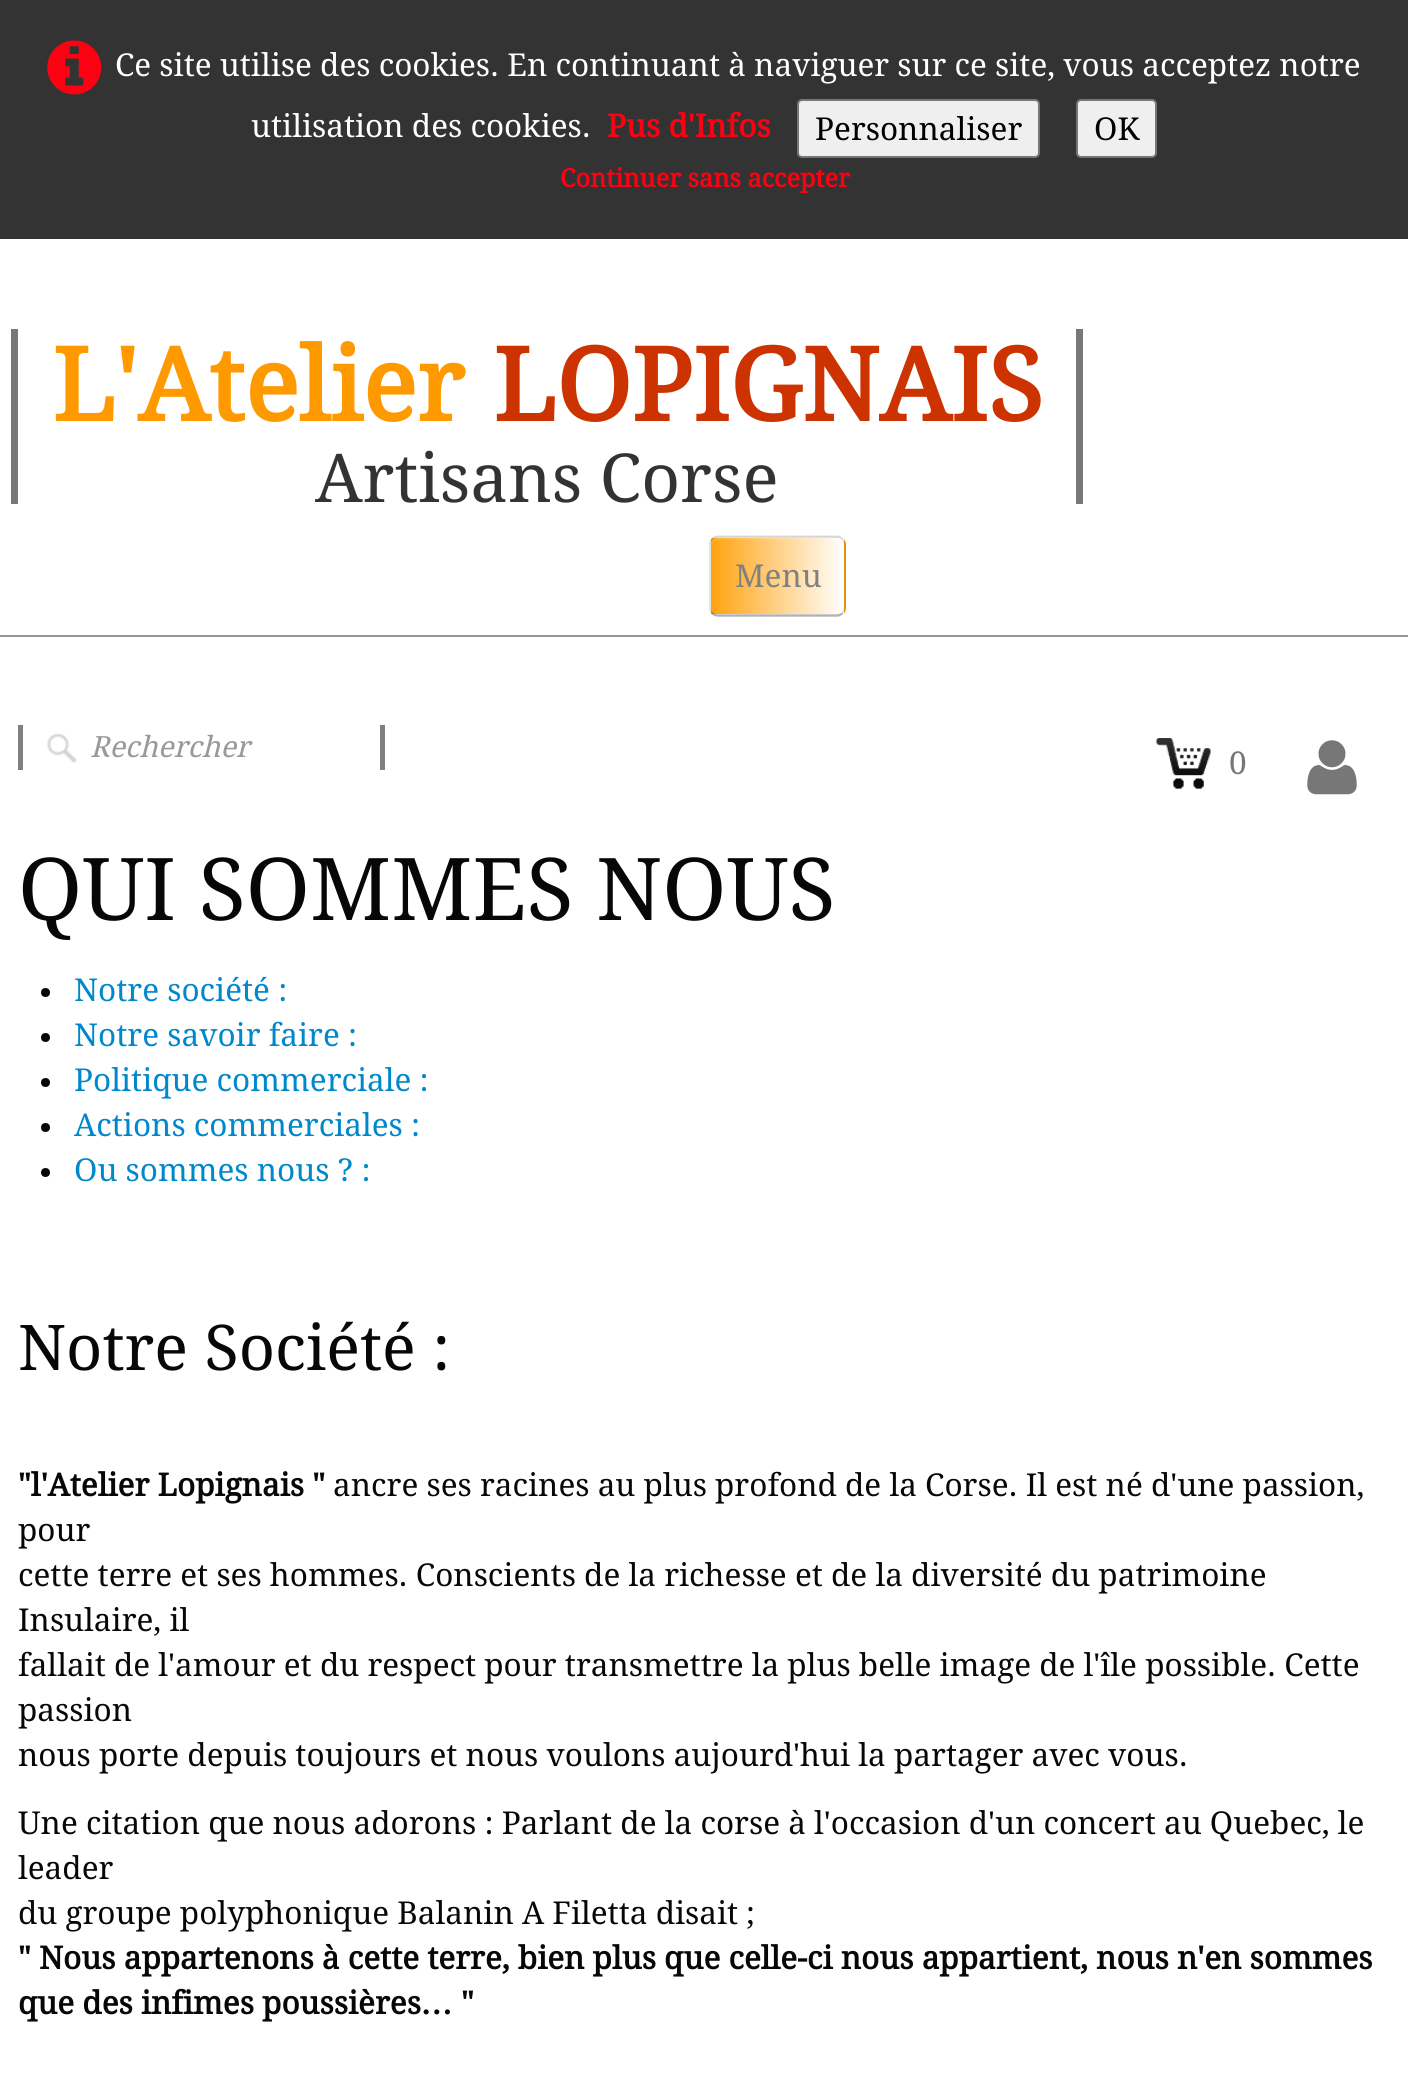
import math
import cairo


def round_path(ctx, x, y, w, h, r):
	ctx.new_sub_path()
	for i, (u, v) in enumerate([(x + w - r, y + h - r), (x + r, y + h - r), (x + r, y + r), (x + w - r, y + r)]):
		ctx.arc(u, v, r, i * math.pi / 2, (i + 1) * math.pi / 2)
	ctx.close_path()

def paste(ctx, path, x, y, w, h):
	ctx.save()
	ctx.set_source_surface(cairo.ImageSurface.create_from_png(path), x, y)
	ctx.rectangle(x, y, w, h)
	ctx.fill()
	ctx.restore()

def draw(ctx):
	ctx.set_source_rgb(1, 1, 1)
	ctx.paint()
	ctx.set_source_rgb(0.2, 0.2, 0.2)
	ctx.rectangle(0, 0, 1408, 239)
	ctx.fill()
	paste(ctx, 'media/1.png', 47, 40, 55, 55)
	ctx.select_font_face('Droid Serif')
	ctx.set_font_size(31.5)
	ctx.set_source_rgb(1, 1, 1)
	ctx.move_to(115, 76)
	ctx.show_text('Ce site utilise des cookies. En continuant à naviguer sur ce site, vous acceptez notre')
	ctx.move_to(251, 137)
	ctx.show_text('utilisation des cookies.')
	ctx.select_font_face('Droid Serif', cairo.FONT_SLANT_NORMAL, cairo.FONT_WEIGHT_BOLD)
	ctx.set_source_rgb(1, 0, 0.075)
	ctx.move_to(607, 137)
	ctx.show_text('Pus d\'Infos')
	ctx.set_source_rgb(0.937, 0.937, 0.937)
	round_path(ctx, 798, 100, 241, 57, 4)
	ctx.fill_preserve()
	ctx.set_source_rgb(0.463, 0.463, 0.463)
	ctx.stroke()
	ctx.select_font_face('Droid Serif')
	ctx.set_source_rgb(0, 0, 0)
	ctx.move_to(815, 140)
	ctx.show_text('Personnaliser')
	ctx.set_source_rgb(0.937, 0.937, 0.937)
	round_path(ctx, 1077, 100, 79, 57, 4)
	ctx.fill_preserve()
	ctx.set_source_rgb(0.463, 0.463, 0.463)
	ctx.stroke()
	ctx.set_source_rgb(0, 0, 0)
	ctx.move_to(1094, 140)
	ctx.show_text('OK')
	ctx.select_font_face('Droid Serif', cairo.FONT_SLANT_NORMAL, cairo.FONT_WEIGHT_BOLD)
	ctx.set_font_size(25.25)
	ctx.set_source_rgb(1, 0, 0.075)
	ctx.move_to(560, 187)
	ctx.show_text('Continuer sans accepter')
	ctx.set_source_rgb(0.588, 0.588, 0.588)
	ctx.rectangle(0, 635, 1408, 2)
	ctx.fill()
	ctx.set_source_rgb(0.471, 0.471, 0.471)
	ctx.rectangle(1076, 329, 7, 175)
	ctx.rectangle(11, 329, 7, 175)
	ctx.fill()
	ctx.set_font_size(101.25)
	ctx.set_source_rgb(1, 0.6, 0)
	ctx.move_to(52, 421)
	ctx.show_text('L\'Atelier')
	ctx.set_source_rgb(0.8, 0.2, 0)
	ctx.move_to(493, 421)
	ctx.show_text('LOPIGNAIS')
	ctx.select_font_face('Droid Serif')
	ctx.set_font_size(67.5)
	ctx.set_source_rgb(0.2, 0.2, 0.2)
	ctx.move_to(315, 502)
	ctx.show_text('Artisans Corse')
	ctx.set_source_rgb(0.929, 0.929, 0.929)
	round_path(ctx, 709, 536, 137, 81, 9)
	ctx.fill()
	ctx.save()
	round_path(ctx, 709, 536, 137, 81, 9)
	ctx.clip()
	gradient = cairo.LinearGradient(578, 576, 711, 576)
	gradient.add_color_stop_rgba(0, 1, 0.639, 0.059, 1)
	gradient.add_color_stop_rgba(1, 1, 1, 1, 1)
	ctx.set_source(gradient)
	ctx.rectangle(709, 538, 2, 76)
	ctx.fill()
	gradient = cairo.LinearGradient(711, 576, 844, 576)
	gradient.add_color_stop_rgba(0, 1, 0.639, 0.059, 1)
	gradient.add_color_stop_rgba(1, 1, 1, 1, 1)
	ctx.set_source(gradient)
	ctx.rectangle(711, 538, 133, 76)
	ctx.fill()
	gradient = cairo.LinearGradient(844, 576, 977, 576)
	gradient.add_color_stop_rgba(0, 1, 0.639, 0.059, 1)
	gradient.add_color_stop_rgba(1, 1, 1, 1, 1)
	ctx.set_source(gradient)
	ctx.rectangle(844, 538, 2, 76)
	ctx.fill()
	ctx.restore()
	ctx.set_source_rgba(1, 1, 1, 0.1)
	ctx.new_path()
	ctx.move_to(718, 540)
	ctx.line_to(837, 540)
	ctx.curve_to(841, 540, 844, 543, 844, 547)
	ctx.line_to(844, 545)
	ctx.curve_to(844, 541, 841, 538, 837, 538)
	ctx.line_to(718, 538)
	ctx.curve_to(714, 538, 711, 541, 711, 545)
	ctx.line_to(711, 547)
	ctx.curve_to(711, 543, 714, 540, 718, 540)
	ctx.close_path()
	ctx.fill()
	ctx.new_path()
	ctx.move_to(842.5, 613)
	ctx.curve_to(841, 614.5, 839, 615.5, 837, 615.5)
	ctx.line_to(718, 615.5)
	ctx.curve_to(715.5, 615.5, 713.5, 614.5, 712, 613)
	ctx.set_source_rgba(0, 0, 0, 0.25)
	ctx.set_line_width(2.2)
	ctx.stroke()
	ctx.new_path()
	ctx.move_to(712, 613)
	ctx.curve_to(710.5, 611.5, 710, 609.5, 710, 607.5)
	ctx.line_to(710, 544.5)
	ctx.curve_to(710, 542.5, 710.5, 540.5, 712, 539)
	ctx.curve_to(713.5, 537.5, 715.5, 536.5, 718, 536.5)
	ctx.line_to(837, 536.5)
	ctx.curve_to(839, 536.5, 841, 537.5, 842.5, 539)
	ctx.curve_to(844, 540.5, 845, 542.5, 845, 544.5)
	ctx.line_to(845, 607.5)
	ctx.curve_to(845, 609.5, 844, 611.5, 842.5, 613)
	ctx.set_source_rgba(0, 0, 0, 0.1)
	ctx.stroke()
	ctx.set_font_size(31.5)
	ctx.set_source_rgb(0.502, 0.502, 0.502)
	ctx.move_to(735, 587)
	ctx.show_text('Menu')
	paste(ctx, 'media/2.png', 47, 733, 30, 30)
	ctx.rectangle(380, 725, 5, 45)
	ctx.fill()
	ctx.rectangle(18, 725, 5, 45)
	ctx.fill()
	ctx.select_font_face('Droid Serif', cairo.FONT_SLANT_ITALIC)
	ctx.set_font_size(29.25)
	ctx.set_source_rgb(0.6, 0.6, 0.6)
	ctx.move_to(90, 757)
	ctx.show_text('Rechercher')
	paste(ctx, 'media/3.png', 1156, 738, 55, 51)
	ctx.select_font_face('Droid Serif')
	ctx.set_font_size(31.5)
	ctx.set_source_rgb(0.467, 0.467, 0.467)
	ctx.move_to(1229, 774)
	ctx.show_text('0')
	paste(ctx, 'media/4.png', 1307, 740, 50, 55)
	ctx.set_font_size(86.6)
	ctx.set_source_rgb(0.031, 0.031, 0.031)
	ctx.move_to(18, 920)
	ctx.show_text('QUI SOMMES NOUS')
	ctx.new_path()
	ctx.arc(45.5, 992.5, 4.5, 0, 2 * math.pi)
	ctx.fill()
	ctx.set_font_size(31.5)
	ctx.set_source_rgb(0, 0.533, 0.8)
	ctx.move_to(74, 1001)
	ctx.show_text('Notre société :')
	ctx.set_source_rgb(0.031, 0.031, 0.031)
	ctx.new_path()
	ctx.arc(45.5, 1037.5, 4.5, 0, 2 * math.pi)
	ctx.fill()
	ctx.set_source_rgb(0, 0.533, 0.8)
	ctx.move_to(74, 1046)
	ctx.show_text('Notre savoir faire :')
	ctx.set_source_rgb(0.031, 0.031, 0.031)
	ctx.new_path()
	ctx.arc(45.5, 1082.5, 4.5, 0, 2 * math.pi)
	ctx.fill()
	ctx.set_source_rgb(0, 0.533, 0.8)
	ctx.move_to(74, 1091)
	ctx.show_text('Politique commerciale :')
	ctx.set_source_rgb(0.031, 0.031, 0.031)
	ctx.new_path()
	ctx.arc(45.5, 1127.5, 4.5, 0, 2 * math.pi)
	ctx.fill()
	ctx.set_source_rgb(0, 0.533, 0.8)
	ctx.move_to(74, 1136)
	ctx.show_text('Actions commerciales :')
	ctx.set_source_rgb(0.031, 0.031, 0.031)
	ctx.new_path()
	ctx.arc(45.5, 1172.5, 4.5, 0, 2 * math.pi)
	ctx.fill()
	ctx.set_source_rgb(0, 0.533, 0.8)
	ctx.move_to(74, 1181)
	ctx.show_text('Ou sommes nous ? :')
	ctx.set_font_size(63)
	ctx.set_source_rgb(0.031, 0.031, 0.031)
	ctx.move_to(18, 1370)
	ctx.show_text('Notre Société :')
	ctx.select_font_face('Droid Serif', cairo.FONT_SLANT_NORMAL, cairo.FONT_WEIGHT_BOLD)
	ctx.set_font_size(31.5)
	ctx.move_to(18, 1496)
	ctx.show_text('"l\'Atelier Lopignais "')
	ctx.select_font_face('Droid Serif')
	for x, y, s in [
		(333, 1496, 'ancre ses racines au plus profond de la Corse. Il est né d\'une passion,'),
		(18, 1541, 'pour'),
		(18, 1586, 'cette terre et ses hommes. Conscients de la richesse et de la diversité du patrimoine'),
		(18, 1631, 'Insulaire, il'),
		(18, 1676, 'fallait de l\'amour et du respect pour transmettre la plus belle image de l\'île possible. Cette'),
		(18, 1721, 'passion'),
		(18, 1766, 'nous porte depuis toujours et nous voulons aujourd\'hui la partager avec vous.'),
		(18, 1834, 'Une citation que nous adorons : Parlant de la corse à l\'occasion d\'un concert au Quebec, le'),
		(18, 1879, 'leader'),
		(18, 1924, 'du groupe polyphonique Balanin A Filetta disait ;'),
	]:
		ctx.move_to(x, y)
		ctx.show_text(s)
	ctx.select_font_face('Droid Serif', cairo.FONT_SLANT_NORMAL, cairo.FONT_WEIGHT_BOLD)
	for x, y, s in [
		(18, 1969, '" Nous appartenons à cette terre, bien plus que celle-ci nous appartient, nous n\'en sommes'),
		(18, 2014, 'que des infimes poussières'),
		(461, 2014, '"'),
	]:
		ctx.move_to(x, y)
		ctx.show_text(s)
	ctx.select_font_face('Liberation Serif', cairo.FONT_SLANT_NORMAL, cairo.FONT_WEIGHT_BOLD)
	ctx.move_to(421, 2014)
	ctx.show_text('…')


surface = cairo.ImageSurface(cairo.FORMAT_RGB24, 1408, 2090)
ctx = cairo.Context(surface)
options = cairo.FontOptions()
options.set_hint_metrics(cairo.HINT_METRICS_OFF)
options.set_hint_style(cairo.HINT_STYLE_NONE)
ctx.set_font_options(options)
ctx.set_miter_limit(4)
draw(ctx)
surface.write_to_png('image.png')
